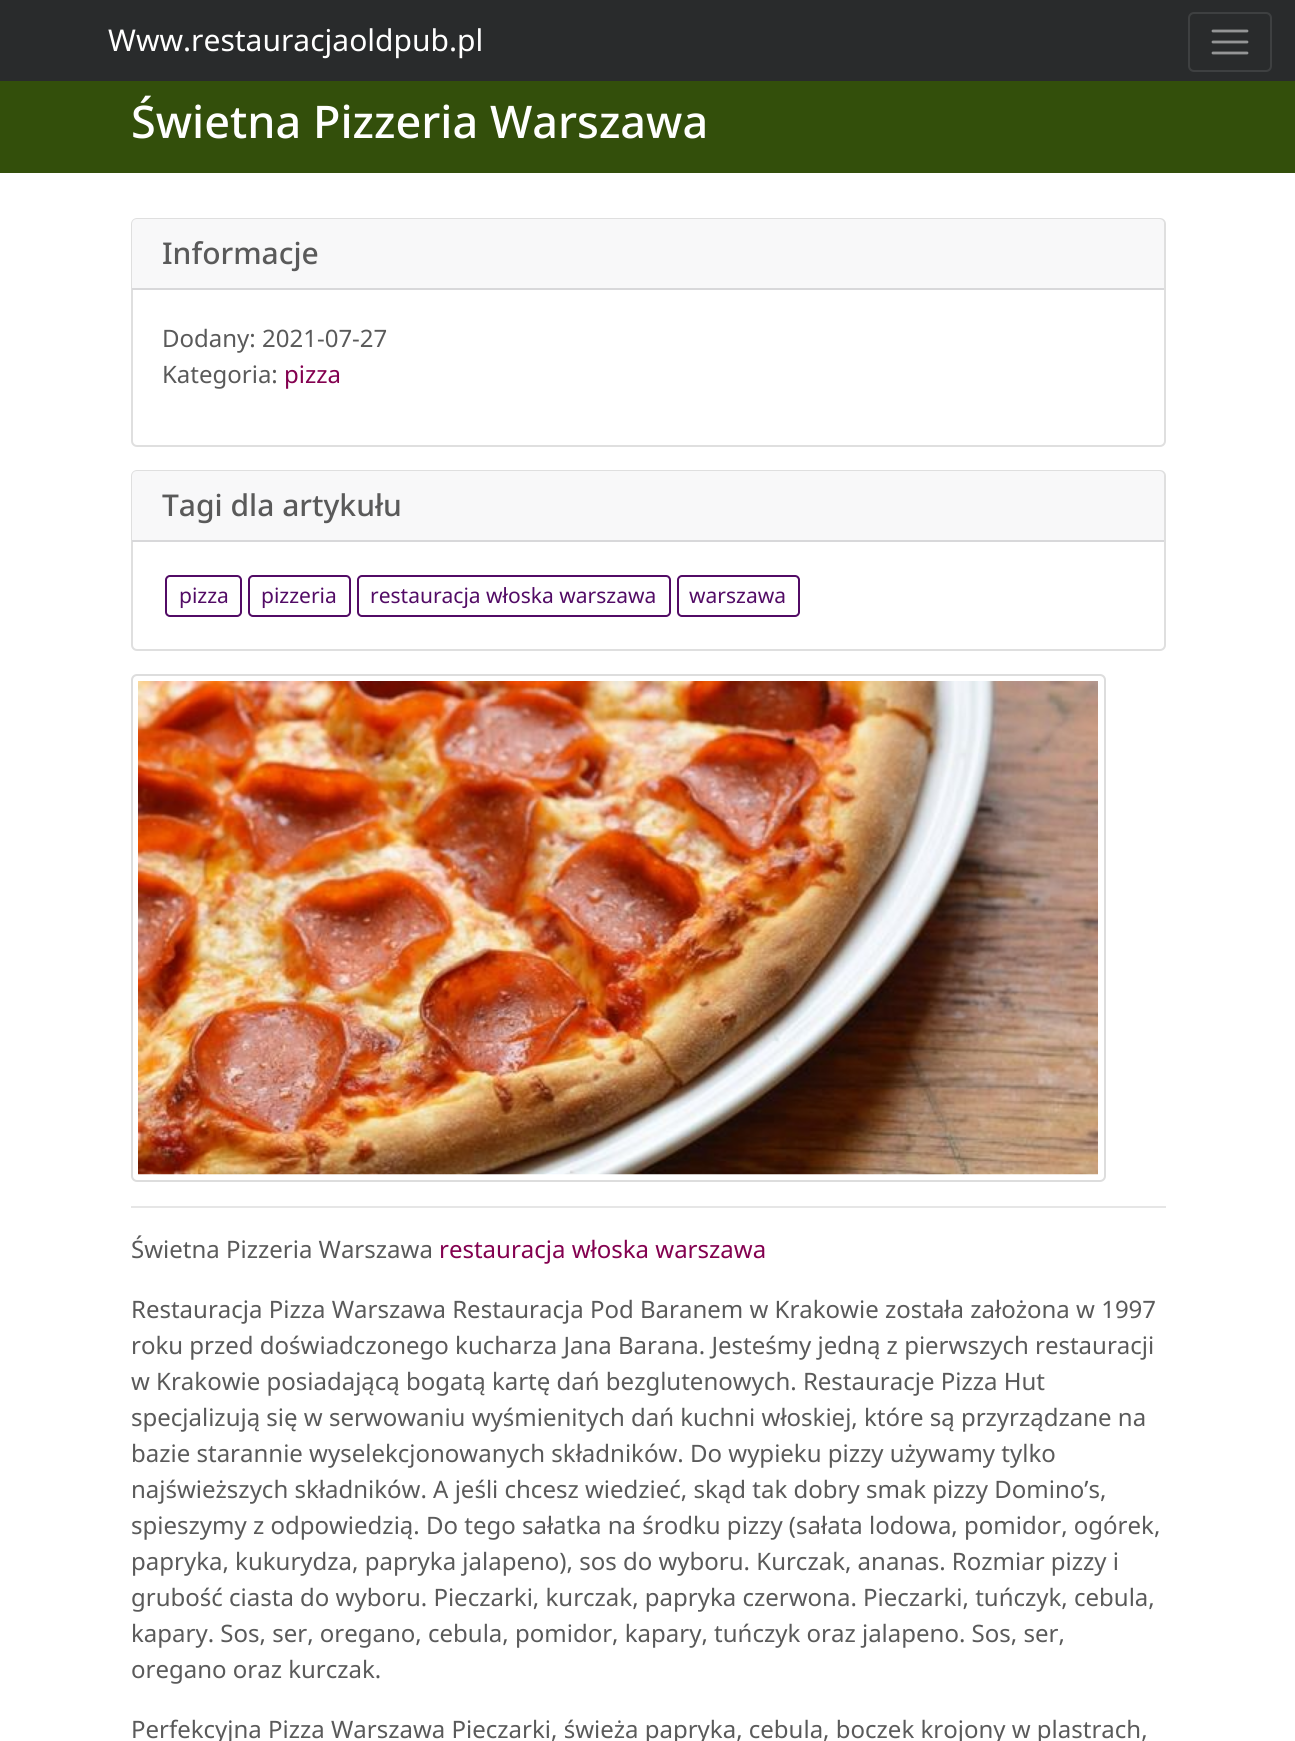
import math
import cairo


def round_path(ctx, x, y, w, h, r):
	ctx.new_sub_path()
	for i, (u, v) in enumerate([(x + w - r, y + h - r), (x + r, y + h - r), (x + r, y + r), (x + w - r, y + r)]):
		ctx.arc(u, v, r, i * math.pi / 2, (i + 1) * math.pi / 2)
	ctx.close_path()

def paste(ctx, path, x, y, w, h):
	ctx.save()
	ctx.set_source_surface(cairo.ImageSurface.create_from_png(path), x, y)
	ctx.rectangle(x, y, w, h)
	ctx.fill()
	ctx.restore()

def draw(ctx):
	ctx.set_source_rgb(1, 1, 1)
	ctx.paint()
	ctx.set_source_rgb(0.161, 0.169, 0.173)
	ctx.rectangle(0, 0, 1295, 81)
	ctx.fill()
	ctx.select_font_face('Noto Sans')
	ctx.set_font_size(30)
	ctx.set_source_rgb(1, 1, 1)
	ctx.move_to(108, 51)
	ctx.show_text('Www.restauracjaoldpub.pl')
	round_path(ctx, 1189, 13, 82, 58, 5)
	ctx.set_source_rgb(0.243, 0.251, 0.255)
	ctx.stroke()
	ctx.new_path()
	ctx.move_to(1213, 31)
	ctx.line_to(1247, 31)
	ctx.move_to(1213, 42)
	ctx.line_to(1247, 42)
	ctx.move_to(1213, 53)
	ctx.line_to(1247, 53)
	ctx.set_source_rgb(0.58, 0.584, 0.588)
	ctx.set_line_width(2.8)
	ctx.set_line_cap(cairo.LINE_CAP_ROUND)
	ctx.stroke()
	ctx.set_source_rgb(0.2, 0.31, 0.043)
	ctx.rectangle(0, 81, 1295, 92)
	ctx.fill()
	ctx.select_font_face('Noto Sans Medium')
	ctx.set_font_size(45)
	ctx.set_source_rgb(1, 1, 1)
	ctx.move_to(131, 138)
	ctx.show_text('Świetna Pizzeria Warszawa')
	round_path(ctx, 132, 219, 1033, 227, 5)
	ctx.set_source_rgb(0.875, 0.875, 0.875)
	ctx.set_line_width(2)
	ctx.set_line_cap(cairo.LINE_CAP_BUTT)
	ctx.stroke()
	ctx.set_source_rgb(0.969, 0.969, 0.976)
	ctx.new_path()
	ctx.move_to(137, 219)
	ctx.line_to(1159, 219)
	ctx.curve_to(1162, 219, 1164, 221, 1164, 224)
	ctx.line_to(1164, 290)
	ctx.line_to(132, 290)
	ctx.line_to(132, 224)
	ctx.curve_to(132, 221, 134, 219, 137, 219)
	ctx.close_path()
	ctx.fill()
	ctx.set_source_rgb(0.847, 0.847, 0.855)
	ctx.rectangle(132, 288, 1032, 2)
	ctx.fill()
	ctx.set_font_size(30)
	ctx.set_source_rgb(0.353, 0.353, 0.353)
	ctx.move_to(162, 264)
	ctx.show_text('Informacje')
	ctx.select_font_face('Noto Sans')
	ctx.set_font_size(24)
	ctx.move_to(162, 347)
	ctx.show_text('Dodany: 2021-07-27')
	ctx.move_to(162, 383)
	ctx.show_text('Kategoria:')
	ctx.set_source_rgb(0.514, 0, 0.31)
	ctx.move_to(284, 383)
	ctx.show_text('pizza')
	round_path(ctx, 132, 471, 1033, 179, 5)
	ctx.set_source_rgb(0.875, 0.875, 0.875)
	ctx.stroke()
	ctx.set_source_rgb(0.969, 0.969, 0.976)
	ctx.new_path()
	ctx.move_to(137, 471)
	ctx.line_to(1159, 471)
	ctx.curve_to(1162, 471, 1164, 473, 1164, 476)
	ctx.line_to(1164, 542)
	ctx.line_to(132, 542)
	ctx.line_to(132, 476)
	ctx.curve_to(132, 473, 134, 471, 137, 471)
	ctx.close_path()
	ctx.fill()
	ctx.set_source_rgb(0.847, 0.847, 0.855)
	ctx.rectangle(132, 540, 1032, 2)
	ctx.fill()
	ctx.select_font_face('Noto Sans Medium')
	ctx.set_font_size(30)
	ctx.set_source_rgb(0.353, 0.353, 0.353)
	ctx.move_to(162, 516)
	ctx.show_text('Tagi dla artykułu')
	round_path(ctx, 166, 576, 75, 40, 4)
	ctx.set_source_rgb(0.322, 0.043, 0.396)
	ctx.stroke()
	ctx.select_font_face('Noto Sans')
	ctx.set_font_size(21)
	ctx.move_to(179, 603)
	ctx.show_text('pizza')
	round_path(ctx, 249, 576, 101, 40, 4)
	ctx.stroke()
	ctx.move_to(261, 603)
	ctx.show_text('pizzeria')
	round_path(ctx, 358, 576, 312, 40, 4)
	ctx.stroke()
	ctx.move_to(370, 603)
	ctx.show_text('restauracja włoska warszawa')
	round_path(ctx, 678, 576, 121, 40, 4)
	ctx.stroke()
	ctx.move_to(689, 603)
	ctx.show_text('warszawa')
	round_path(ctx, 132, 675, 973, 506, 5)
	ctx.set_source_rgb(0.867, 0.867, 0.867)
	ctx.stroke()
	paste(ctx, 'media/1.png', 138, 681, 960, 494)
	ctx.set_source_rgb(0.902, 0.902, 0.902)
	ctx.rectangle(131, 1206, 1035, 2)
	ctx.fill()
	ctx.set_font_size(24)
	ctx.set_source_rgb(0.353, 0.353, 0.353)
	ctx.move_to(131, 1258)
	ctx.show_text('Świetna Pizzeria Warszawa')
	ctx.set_source_rgb(0.514, 0, 0.31)
	ctx.move_to(439, 1258)
	ctx.show_text('restauracja włoska warszawa')
	ctx.set_source_rgb(0.353, 0.353, 0.353)
	for x, y, s in [
		(131, 1318, 'Restauracja Pizza Warszawa Restauracja Pod Baranem w Krakowie została założona w 1997'),
		(131, 1354, 'roku przed doświadczonego kucharza Jana Barana. Jesteśmy jedną z pierwszych restauracji'),
		(131, 1390, 'w Krakowie posiadającą bogatą kartę dań bezglutenowych. Restauracje Pizza Hut'),
		(131, 1426, 'specjalizują się w serwowaniu wyśmienitych dań kuchni włoskiej, które są przyrządzane na'),
		(131, 1462, 'bazie starannie wyselekcjonowanych składników. Do wypieku pizzy używamy tylko'),
		(131, 1498, 'najświeższych składników. A jeśli chcesz wiedzieć, skąd tak dobry smak pizzy Domino’s,'),
		(131, 1534, 'spieszymy z odpowiedzią. Do tego sałatka na środku pizzy (sałata lodowa, pomidor, ogórek,'),
		(131, 1570, 'papryka, kukurydza, papryka jalapeno), sos do wyboru. Kurczak, ananas. Rozmiar pizzy i'),
		(131, 1606, 'grubość ciasta do wyboru. Pieczarki, kurczak, papryka czerwona. Pieczarki, tuńczyk, cebula,'),
		(131, 1642, 'kapary. Sos, ser, oregano, cebula, pomidor, kapary, tuńczyk oraz jalapeno. Sos, ser,'),
		(131, 1678, 'oregano oraz kurczak.'),
		(131, 1738, 'Perfekcyjna Pizza Warszawa Pieczarki, świeża papryka, cebula, boczek krojony w plastrach,'),
	]:
		ctx.move_to(x, y)
		ctx.show_text(s)


surface = cairo.ImageSurface(cairo.FORMAT_RGB24, 1295, 1741)
ctx = cairo.Context(surface)
options = cairo.FontOptions()
options.set_hint_metrics(cairo.HINT_METRICS_OFF)
options.set_hint_style(cairo.HINT_STYLE_NONE)
ctx.set_font_options(options)
ctx.set_miter_limit(4)
draw(ctx)
surface.write_to_png('image.png')
